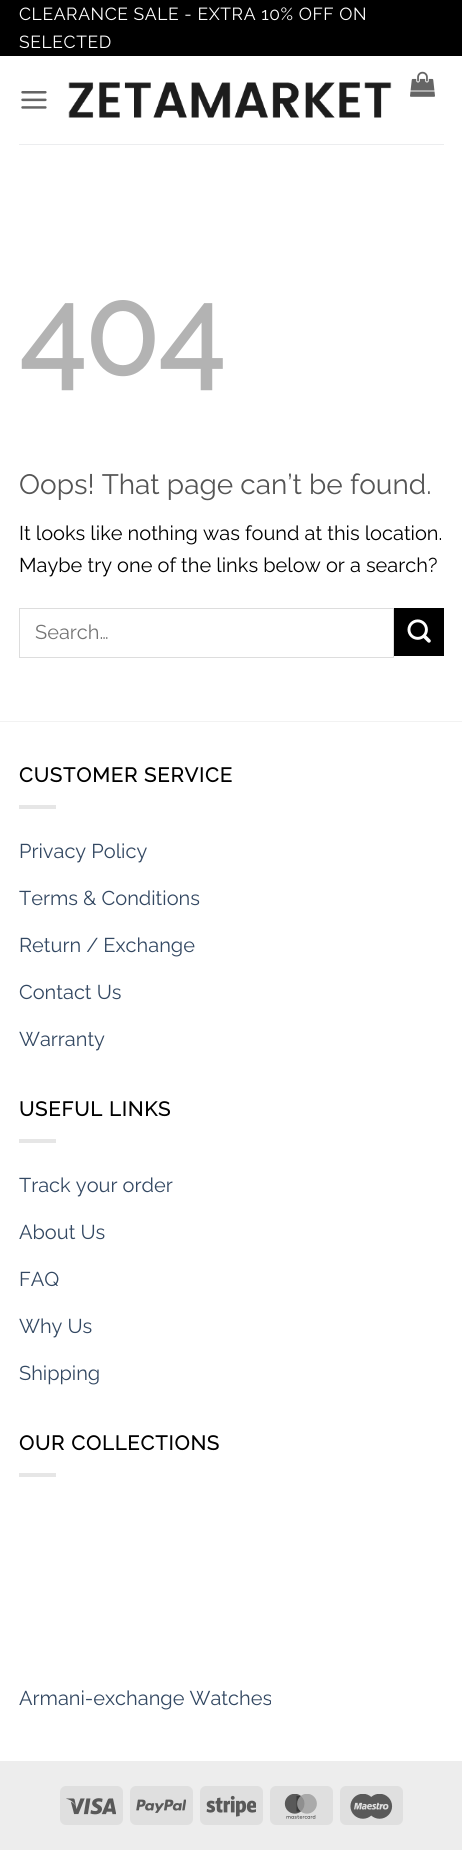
import math
import cairo


def write_spaced(ctx, x, y, s, letter, word):
	ctx.move_to(x, y)
	for ch in s:
		ctx.show_text(ch)
		ctx.rel_move_to(letter + word * (ch == ' '), 0)

def round_path(ctx, x, y, w, h, r):
	ctx.new_sub_path()
	for i, (u, v) in enumerate([(x + w - r, y + h - r), (x + r, y + h - r), (x + r, y + r), (x + w - r, y + r)]):
		ctx.arc(u, v, r, i * math.pi / 2, (i + 1) * math.pi / 2)
	ctx.close_path()

def paste(ctx, path, x, y, w, h):
	ctx.save()
	ctx.set_source_surface(cairo.ImageSurface.create_from_png(path), x, y)
	ctx.rectangle(x, y, w, h)
	ctx.fill()
	ctx.restore()

def draw(ctx):
	ctx.set_source_rgb(1, 1, 1)
	ctx.paint()
	ctx.set_source_rgb(0, 0, 0)
	ctx.rectangle(0, 0, 462, 56)
	ctx.fill()
	ctx.select_font_face('Raleway Thin')
	ctx.set_font_size(17.5)
	ctx.set_source_rgb(1, 1, 1)
	write_spaced(ctx, 19, 20, 'CLEARANCE SALE - EXTRA 10% OFF ON', 0.6, 0)
	write_spaced(ctx, 19, 48, 'SELECTED', 0.6, 0)
	paste(ctx, 'media/1.png', 21, 91, 26, 18)
	paste(ctx, 'media/2.png', 68, 82, 324, 36)
	paste(ctx, 'media/3.png', 410, 71, 25, 26)
	ctx.set_source_rgb(0.922, 0.929, 0.937)
	ctx.rectangle(19, 144, 425, 1)
	ctx.fill()
	ctx.select_font_face('Raleway', cairo.FONT_SLANT_NORMAL, cairo.FONT_WEIGHT_BOLD)
	ctx.set_font_size(120)
	ctx.set_source_rgb(0.702, 0.702, 0.702)
	ctx.move_to(19, 375)
	ctx.show_text('404')
	ctx.select_font_face('Raleway Thin')
	ctx.set_font_size(28)
	ctx.set_source_rgb(0.333, 0.333, 0.333)
	ctx.move_to(19, 494)
	ctx.show_text('Oops! That page can’t be found.')
	ctx.set_font_size(20)
	ctx.set_source_rgb(0, 0, 0)
	ctx.move_to(19, 540)
	ctx.show_text('It looks like nothing was found at this location.')
	ctx.move_to(19, 572)
	ctx.show_text('Maybe try one of the links below or a search?')
	ctx.rectangle(19.5, 608.5, 374, 49)
	ctx.set_source_rgb(0.867, 0.867, 0.867)
	ctx.set_line_width(1)
	ctx.stroke()
	ctx.set_source_rgb(0.459, 0.459, 0.459)
	ctx.move_to(35, 639)
	ctx.show_text('Search…')
	ctx.set_source_rgb(0, 0, 0)
	ctx.rectangle(394, 608, 50, 48)
	ctx.fill()
	paste(ctx, 'media/4.png', 407, 619, 24, 24)
	ctx.set_source_rgb(0.949, 0.949, 0.949)
	ctx.rectangle(0, 721, 462, 1)
	ctx.fill()
	ctx.select_font_face('Raleway', cairo.FONT_SLANT_NORMAL, cairo.FONT_WEIGHT_BOLD)
	ctx.set_source_rgb(0, 0, 0)
	write_spaced(ctx, 19, 782, 'CUSTOMER SERVICE', 1, 0)
	ctx.set_source_rgb(0.902, 0.902, 0.902)
	ctx.rectangle(19, 805, 37, 4)
	ctx.fill()
	ctx.select_font_face('Raleway Thin')
	ctx.set_source_rgb(0.2, 0.282, 0.384)
	for x, y, s in [
		(19, 858, 'Privacy Policy'),
		(19, 905, 'Terms & Conditions'),
		(19, 952, 'Return / Exchange'),
		(19, 999, 'Contact Us'),
		(19, 1046, 'Warranty'),
	]:
		ctx.move_to(x, y)
		ctx.show_text(s)
	ctx.select_font_face('Raleway', cairo.FONT_SLANT_NORMAL, cairo.FONT_WEIGHT_BOLD)
	ctx.set_source_rgb(0, 0, 0)
	write_spaced(ctx, 19, 1116, 'USEFUL LINKS', 1, 0)
	ctx.set_source_rgb(0.902, 0.902, 0.902)
	ctx.rectangle(19, 1139, 37, 4)
	ctx.fill()
	ctx.select_font_face('Raleway Thin')
	ctx.set_source_rgb(0.2, 0.282, 0.384)
	for x, y, s in [
		(19, 1192, 'Track your order'),
		(19, 1239, 'About Us'),
		(19, 1286, 'FAQ'),
		(19, 1333, 'Why Us'),
		(19, 1380, 'Shipping'),
	]:
		ctx.move_to(x, y)
		ctx.show_text(s)
	ctx.select_font_face('Raleway', cairo.FONT_SLANT_NORMAL, cairo.FONT_WEIGHT_BOLD)
	ctx.set_source_rgb(0, 0, 0)
	write_spaced(ctx, 19, 1450, 'OUR COLLECTIONS', 1, 0)
	ctx.set_source_rgb(0.902, 0.902, 0.902)
	ctx.rectangle(19, 1473, 37, 4)
	ctx.fill()
	ctx.select_font_face('Raleway Thin')
	ctx.set_source_rgb(0.2, 0.282, 0.384)
	ctx.move_to(19, 1705)
	ctx.show_text('Armani-exchange Watches')
	ctx.set_source_rgb(0.929, 0.929, 0.929)
	ctx.rectangle(0, 1761, 462, 89)
	ctx.fill()
	ctx.set_source_rgb(0.875, 0.875, 0.875)
	round_path(ctx, 60, 1786, 63, 39, 6)
	ctx.fill()
	paste(ctx, 'media/5.png', 66, 1798, 50, 17)
	round_path(ctx, 130, 1786, 63, 39, 6)
	ctx.fill()
	paste(ctx, 'media/6.png', 136, 1799, 50, 14)
	round_path(ctx, 200, 1786, 63, 39, 6)
	ctx.fill()
	paste(ctx, 'media/7.png', 206, 1795, 50, 22)
	round_path(ctx, 270, 1786, 63, 39, 6)
	ctx.fill()
	paste(ctx, 'media/8.png', 284, 1794, 33, 25)
	round_path(ctx, 340, 1786, 63, 39, 6)
	ctx.fill()
	paste(ctx, 'media/9.png', 350, 1794, 43, 25)


surface = cairo.ImageSurface(cairo.FORMAT_RGB24, 462, 1850)
ctx = cairo.Context(surface)
options = cairo.FontOptions()
options.set_hint_metrics(cairo.HINT_METRICS_OFF)
options.set_hint_style(cairo.HINT_STYLE_NONE)
ctx.set_font_options(options)
ctx.set_miter_limit(4)
draw(ctx)
surface.write_to_png('image.png')
